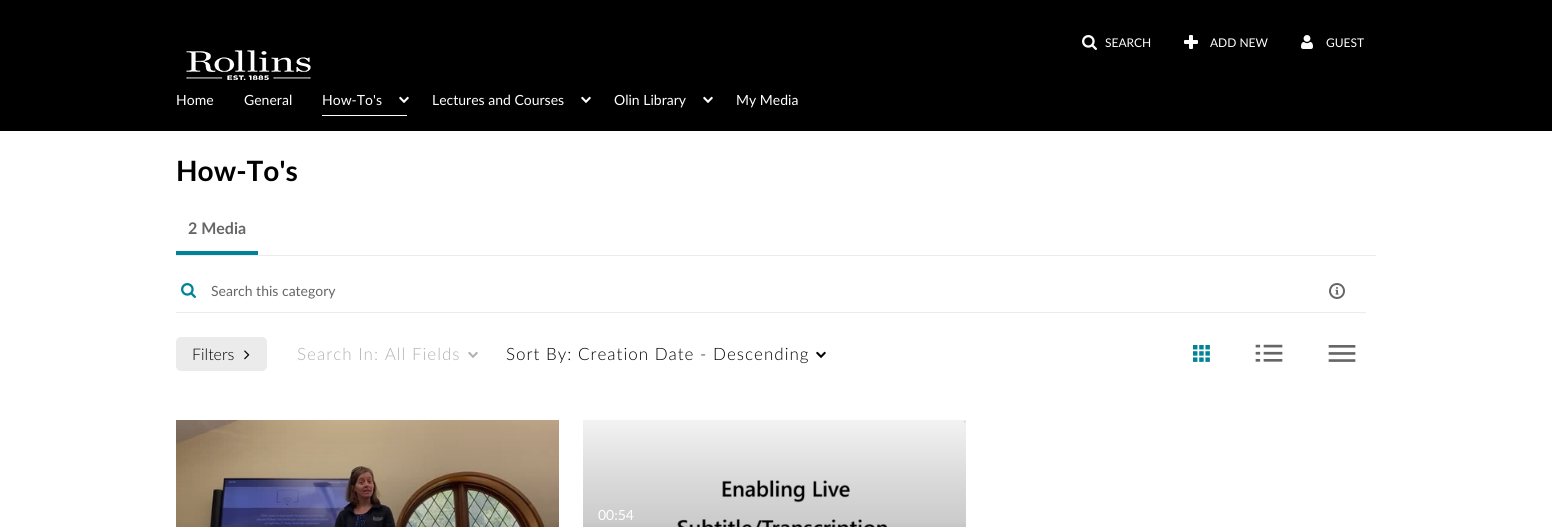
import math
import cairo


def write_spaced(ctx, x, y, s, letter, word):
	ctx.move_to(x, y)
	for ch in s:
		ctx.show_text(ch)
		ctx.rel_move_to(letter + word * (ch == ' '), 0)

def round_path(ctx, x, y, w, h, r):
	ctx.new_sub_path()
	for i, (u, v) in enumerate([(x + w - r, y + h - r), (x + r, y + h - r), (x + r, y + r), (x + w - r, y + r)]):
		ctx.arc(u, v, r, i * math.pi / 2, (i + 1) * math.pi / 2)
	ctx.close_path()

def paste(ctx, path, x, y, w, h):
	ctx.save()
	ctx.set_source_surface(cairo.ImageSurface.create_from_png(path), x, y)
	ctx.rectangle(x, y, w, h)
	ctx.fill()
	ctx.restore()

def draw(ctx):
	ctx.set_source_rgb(1, 1, 1)
	ctx.paint()
	ctx.set_source_rgb(0, 0, 0)
	ctx.rectangle(0, 0, 1552, 131)
	ctx.fill()
	paste(ctx, 'media/1.png', 1082, 35, 15, 15)
	ctx.select_font_face('Lato')
	ctx.set_font_size(12)
	ctx.set_source_rgb(1, 1, 1)
	ctx.move_to(1105, 47)
	ctx.show_text('SEARCH')
	paste(ctx, 'media/2.png', 1184, 35, 14, 14)
	ctx.move_to(1210, 47)
	ctx.show_text('ADD NEW')
	paste(ctx, 'media/3.png', 1301, 35, 12, 14)
	ctx.move_to(1326, 47)
	ctx.show_text('GUEST')
	paste(ctx, 'media/4.png', 186, 50, 125, 30)
	ctx.set_font_size(14)
	ctx.move_to(176, 105)
	ctx.show_text('Home')
	ctx.move_to(244, 105)
	ctx.show_text('General')
	ctx.rectangle(322, 115, 85, 1)
	ctx.fill()
	ctx.move_to(322, 105)
	ctx.show_text('How-To\'s')
	paste(ctx, 'media/5.png', 399, 96, 10, 7)
	ctx.move_to(432, 105)
	ctx.show_text('Lectures and Courses')
	paste(ctx, 'media/5.png', 581, 96, 10, 7)
	ctx.move_to(614, 105)
	ctx.show_text('Olin Library')
	paste(ctx, 'media/5.png', 703, 96, 10, 7)
	ctx.move_to(736, 105)
	ctx.show_text('My Media')
	ctx.select_font_face('Lato', cairo.FONT_SLANT_NORMAL, cairo.FONT_WEIGHT_BOLD)
	ctx.set_font_size(28)
	ctx.set_source_rgb(0, 0, 0)
	ctx.move_to(176, 181)
	ctx.show_text('How-To\'s')
	ctx.set_source_rgb(0.922, 0.922, 0.922)
	ctx.rectangle(176, 255, 1200, 1)
	ctx.fill()
	ctx.set_source_rgb(0, 0.51, 0.592)
	ctx.rectangle(176, 251, 82, 4)
	ctx.fill()
	ctx.set_font_size(16)
	ctx.set_source_rgb(0.4, 0.4, 0.4)
	ctx.move_to(188, 234)
	ctx.show_text('2 Media')
	ctx.set_source_rgb(0.922, 0.922, 0.922)
	ctx.rectangle(176, 312, 1190, 1)
	ctx.fill()
	paste(ctx, 'media/6.png', 181, 283, 15, 15)
	ctx.select_font_face('Lato')
	ctx.set_font_size(14)
	ctx.set_source_rgb(0.4, 0.4, 0.4)
	ctx.move_to(211, 296)
	ctx.show_text('Search this category')
	paste(ctx, 'media/7.png', 1329, 283, 16, 16)
	ctx.set_source_rgb(0.918, 0.918, 0.918)
	round_path(ctx, 176, 337, 91, 34, 5)
	ctx.fill()
	ctx.select_font_face('Lato Light')
	ctx.set_font_size(16)
	ctx.set_source_rgb(0, 0, 0)
	ctx.move_to(192, 360)
	ctx.show_text('Filters')
	paste(ctx, 'media/8.png', 244, 350, 6, 10)
	ctx.set_font_size(17)
	ctx.set_source_rgb(0.698, 0.698, 0.698)
	write_spaced(ctx, 297, 360, 'Search In: All Fields', 1, 0)
	paste(ctx, 'media/9.png', 468, 351, 10, 7)
	ctx.set_source_rgb(0, 0, 0)
	write_spaced(ctx, 506, 360, 'Sort By: Creation Date - Descending', 1, 0)
	paste(ctx, 'media/10.png', 816, 351, 10, 7)
	paste(ctx, 'media/11.png', 1193, 345, 17, 17)
	paste(ctx, 'media/12.png', 1255, 344, 28, 18)
	paste(ctx, 'media/13.png', 1328, 345, 28, 17)
	paste(ctx, 'media/14.png', 176, 420, 383, 107)
	paste(ctx, 'media/15.png', 677, 420, 289, 107)
	gradient = cairo.LinearGradient(775, 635, 775, 420)
	gradient.add_color_stop_rgba(0, 0, 0, 0, 0.8)
	gradient.add_color_stop_rgba(0.3, 0, 0, 0, 0.4)
	gradient.add_color_stop_rgba(0.53, 0, 0, 0, 0.2)
	gradient.add_color_stop_rgba(0.71, 0, 0, 0, 0.15)
	gradient.add_color_stop_rgba(1, 0, 0, 0, 0.05)
	ctx.set_source(gradient)
	ctx.rectangle(583, 420, 383, 107)
	ctx.fill()
	ctx.select_font_face('Lato')
	ctx.set_font_size(14)
	ctx.set_source_rgb(1, 1, 1)
	ctx.move_to(598, 520)
	ctx.show_text('00:54')


surface = cairo.ImageSurface(cairo.FORMAT_RGB24, 1552, 527)
ctx = cairo.Context(surface)
options = cairo.FontOptions()
options.set_hint_metrics(cairo.HINT_METRICS_OFF)
options.set_hint_style(cairo.HINT_STYLE_NONE)
ctx.set_font_options(options)
ctx.set_miter_limit(4)
draw(ctx)
surface.write_to_png('image.png')
